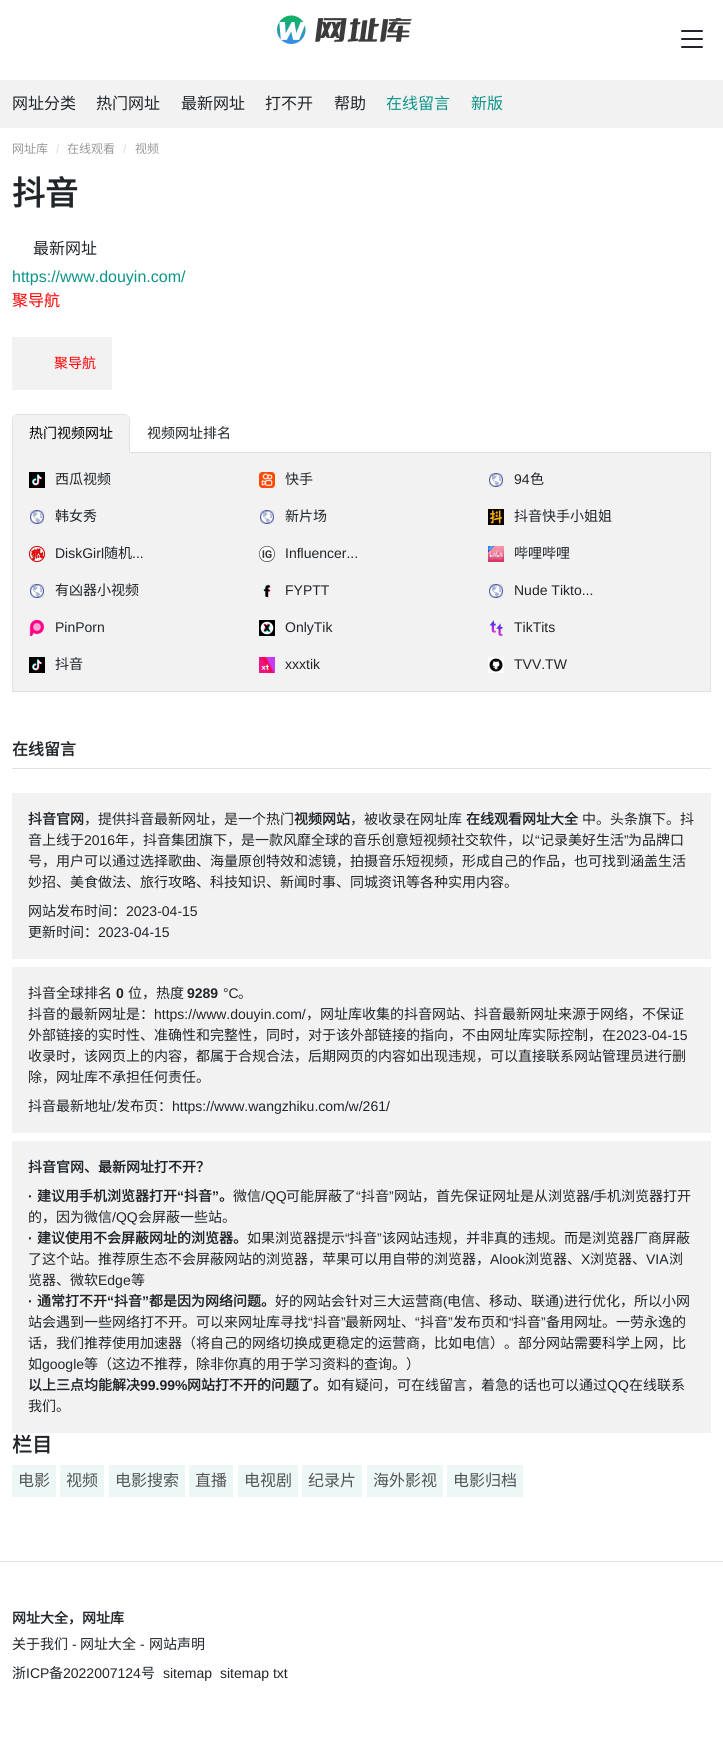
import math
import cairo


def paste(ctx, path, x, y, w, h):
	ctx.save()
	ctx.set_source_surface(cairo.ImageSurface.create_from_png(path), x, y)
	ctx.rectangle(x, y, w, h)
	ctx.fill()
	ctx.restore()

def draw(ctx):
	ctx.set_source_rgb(1, 1, 1)
	ctx.paint()
	paste(ctx, 'media/1.png', 277, 15, 135, 29)
	paste(ctx, 'media/2.png', 681, 30, 22, 18)
	ctx.set_source_rgb(0.949, 0.949, 0.949)
	ctx.rectangle(0, 80, 723, 48)
	ctx.fill()
	ctx.select_font_face('Noto Sans CJK SC')
	ctx.set_font_size(16)
	ctx.set_source_rgb(0.129, 0.145, 0.161)
	for x, y, s in [
		(12, 109, '网址分类'),
		(96, 109, '热门网址'),
		(181, 109, '最新网址'),
		(265, 109, '打不开'),
		(334, 109, '帮助'),
	]:
		ctx.move_to(x, y)
		ctx.show_text(s)
	ctx.set_source_rgb(0.051, 0.58, 0.533)
	ctx.move_to(386, 109)
	ctx.show_text('在线留言')
	ctx.move_to(471, 109)
	ctx.show_text('新版')
	ctx.set_font_size(12)
	ctx.set_source_rgb(0.6, 0.6, 0.6)
	ctx.move_to(12, 153)
	ctx.show_text('网址库')
	ctx.select_font_face('Liberation Sans')
	ctx.set_source_rgb(0.867, 0.867, 0.867)
	ctx.move_to(56, 153)
	ctx.show_text('/')
	ctx.select_font_face('Noto Sans CJK SC')
	ctx.set_source_rgb(0.6, 0.6, 0.6)
	ctx.move_to(67, 153)
	ctx.show_text('在线观看')
	ctx.select_font_face('Liberation Sans')
	ctx.set_source_rgb(0.867, 0.867, 0.867)
	ctx.move_to(123, 153)
	ctx.show_text('/')
	ctx.select_font_face('Noto Sans CJK SC')
	ctx.set_source_rgb(0.6, 0.6, 0.6)
	ctx.move_to(135, 153)
	ctx.show_text('视频')
	ctx.select_font_face('Noto Sans CJK SC', cairo.FONT_SLANT_NORMAL, cairo.FONT_WEIGHT_BOLD)
	ctx.set_font_size(33)
	ctx.set_source_rgb(0.129, 0.145, 0.161)
	ctx.move_to(12, 205)
	ctx.show_text('抖音')
	ctx.select_font_face('Noto Sans CJK SC')
	ctx.set_font_size(16)
	ctx.move_to(33, 254)
	ctx.show_text('最新网址')
	ctx.select_font_face('Liberation Sans')
	ctx.set_source_rgb(0.051, 0.58, 0.533)
	ctx.move_to(12, 282)
	ctx.show_text('https://www.douyin.com/')
	ctx.select_font_face('Noto Sans CJK SC')
	ctx.set_source_rgb(1, 0, 0)
	ctx.move_to(12, 306)
	ctx.show_text('聚导航')
	ctx.set_source_rgb(0.949, 0.949, 0.949)
	ctx.rectangle(12, 337, 100, 53)
	ctx.fill()
	ctx.set_font_size(14)
	ctx.set_source_rgb(1, 0, 0)
	ctx.move_to(54, 368)
	ctx.show_text('聚导航')
	ctx.set_source_rgb(0.871, 0.886, 0.902)
	ctx.rectangle(130, 452, 581, 1)
	ctx.fill()
	ctx.set_source_rgb(0.949, 0.949, 0.949)
	ctx.new_path()
	ctx.move_to(18, 414)
	ctx.line_to(124, 414)
	ctx.curve_to(127.5, 414, 130, 416.5, 130, 420)
	ctx.line_to(130, 453)
	ctx.line_to(12, 453)
	ctx.line_to(12, 420)
	ctx.curve_to(12, 416.5, 14.5, 414, 18, 414)
	ctx.close_path()
	ctx.fill()
	ctx.set_source_rgb(0.871, 0.886, 0.902)
	ctx.new_path()
	ctx.move_to(18, 414)
	ctx.curve_to(16, 414, 15, 415, 14, 416)
	ctx.line_to(17, 415)
	ctx.line_to(125, 415)
	ctx.line_to(128, 416)
	ctx.curve_to(127, 415, 126, 414, 124, 414)
	ctx.close_path()
	ctx.fill()
	ctx.new_path()
	ctx.move_to(130, 453)
	ctx.line_to(130, 420)
	ctx.curve_to(130, 418.5, 129, 417, 128, 416)
	ctx.line_to(127.5, 416.5)
	ctx.curve_to(128.5, 417, 129, 418.5, 129, 420)
	ctx.line_to(129, 452)
	ctx.close_path()
	ctx.fill()
	ctx.set_source_rgb(0.949, 0.949, 0.949)
	ctx.new_path()
	ctx.move_to(130, 453)
	ctx.line_to(129, 452)
	ctx.line_to(13, 452)
	ctx.line_to(12, 453)
	ctx.close_path()
	ctx.fill()
	ctx.set_source_rgb(0.871, 0.886, 0.902)
	ctx.new_path()
	ctx.move_to(12, 453)
	ctx.line_to(13, 452)
	ctx.line_to(13, 420)
	ctx.curve_to(13, 418.5, 13.5, 417, 14.5, 416.5)
	ctx.line_to(14, 416)
	ctx.curve_to(13, 417, 12, 418.5, 12, 420)
	ctx.close_path()
	ctx.fill()
	ctx.set_source_rgb(0, 0, 0)
	ctx.move_to(29, 438)
	ctx.show_text('热门视频网址')
	ctx.set_source_rgb(0.129, 0.145, 0.161)
	ctx.move_to(147, 438)
	ctx.show_text('视频网址排名')
	ctx.set_source_rgb(0.949, 0.949, 0.949)
	ctx.rectangle(13, 453, 697, 238)
	ctx.fill()
	ctx.set_source_rgb(0.871, 0.886, 0.902)
	ctx.rectangle(710, 453, 1, 239)
	ctx.rectangle(12, 691, 699, 1)
	ctx.rectangle(12, 453, 1, 239)
	ctx.fill()
	paste(ctx, 'media/3.png', 29, 472, 16, 16)
	ctx.set_source_rgb(0.129, 0.145, 0.161)
	ctx.move_to(55, 484)
	ctx.show_text('西瓜视频')
	paste(ctx, 'media/4.png', 259, 472, 16, 16)
	ctx.move_to(285, 484)
	ctx.show_text('快手')
	paste(ctx, 'media/5.png', 489, 473, 14, 14)
	ctx.select_font_face('Liberation Sans')
	ctx.move_to(514, 484)
	ctx.show_text('94')
	ctx.select_font_face('Noto Sans CJK SC')
	ctx.move_to(530, 484)
	ctx.show_text('色')
	paste(ctx, 'media/5.png', 30, 510, 14, 14)
	ctx.move_to(55, 521)
	ctx.show_text('韩女秀')
	paste(ctx, 'media/5.png', 260, 510, 14, 14)
	ctx.move_to(285, 521)
	ctx.show_text('新片场')
	paste(ctx, 'media/6.png', 488, 509, 16, 16)
	ctx.move_to(514, 521)
	ctx.show_text('抖音快手小姐姐')
	paste(ctx, 'media/7.png', 29, 546, 16, 16)
	ctx.select_font_face('Liberation Sans')
	ctx.move_to(55, 558)
	ctx.show_text('DiskGirl')
	ctx.select_font_face('Noto Sans CJK SC')
	ctx.move_to(104, 558)
	ctx.show_text('随机')
	ctx.select_font_face('Liberation Sans')
	ctx.move_to(132, 558)
	ctx.show_text('...')
	paste(ctx, 'media/8.png', 259, 546, 16, 16)
	ctx.move_to(285, 558)
	ctx.show_text('Influencer...')
	paste(ctx, 'media/9.png', 488, 546, 16, 16)
	ctx.select_font_face('Noto Sans CJK SC')
	ctx.move_to(514, 558)
	ctx.show_text('哔哩哔哩')
	paste(ctx, 'media/5.png', 30, 584, 14, 14)
	ctx.move_to(55, 595)
	ctx.show_text('有凶器小视频')
	paste(ctx, 'media/10.png', 263, 584, 8, 14)
	ctx.select_font_face('Liberation Sans')
	ctx.move_to(285, 595)
	ctx.show_text('FYPTT')
	paste(ctx, 'media/5.png', 489, 584, 14, 14)
	ctx.move_to(514, 595)
	ctx.show_text('Nude Tikto...')
	paste(ctx, 'media/11.png', 29, 620, 16, 16)
	ctx.move_to(55, 632)
	ctx.show_text('PinPorn')
	paste(ctx, 'media/12.png', 259, 620, 16, 16)
	ctx.move_to(285, 632)
	ctx.show_text('OnlyTik')
	paste(ctx, 'media/13.png', 489, 620, 14, 16)
	ctx.move_to(514, 632)
	ctx.show_text('TikTits')
	paste(ctx, 'media/3.png', 29, 657, 16, 16)
	ctx.select_font_face('Noto Sans CJK SC')
	ctx.move_to(55, 669)
	ctx.show_text('抖音')
	paste(ctx, 'media/14.png', 259, 657, 16, 16)
	ctx.select_font_face('Liberation Sans')
	ctx.move_to(285, 669)
	ctx.show_text('xxxtik')
	paste(ctx, 'media/15.png', 488, 657, 16, 16)
	ctx.move_to(514, 669)
	ctx.show_text('TVV.TW')
	ctx.set_source_rgb(0.871, 0.886, 0.902)
	ctx.rectangle(12, 768, 699, 1)
	ctx.fill()
	ctx.select_font_face('Noto Sans CJK SC', cairo.FONT_SLANT_NORMAL, cairo.FONT_WEIGHT_BOLD)
	ctx.set_font_size(16)
	ctx.set_source_rgb(0.129, 0.145, 0.161)
	ctx.move_to(12, 755)
	ctx.show_text('在线留言')
	ctx.set_source_rgb(0.949, 0.949, 0.949)
	ctx.rectangle(12, 793, 699, 166)
	ctx.fill()
	ctx.set_font_size(14)
	ctx.set_source_rgb(0.129, 0.145, 0.161)
	ctx.move_to(28, 824)
	ctx.show_text('抖音官网')
	ctx.select_font_face('Noto Sans CJK SC')
	ctx.move_to(84, 824)
	ctx.show_text('，提供抖音最新网址，是一个热门')
	ctx.select_font_face('Noto Sans CJK SC', cairo.FONT_SLANT_NORMAL, cairo.FONT_WEIGHT_BOLD)
	ctx.move_to(294, 824)
	ctx.show_text('视频网站')
	ctx.select_font_face('Noto Sans CJK SC')
	ctx.move_to(350, 824)
	ctx.show_text('，被收录在网址库')
	ctx.select_font_face('Noto Sans CJK SC', cairo.FONT_SLANT_NORMAL, cairo.FONT_WEIGHT_BOLD)
	ctx.move_to(466, 824)
	ctx.show_text('在线观看网址大全')
	ctx.select_font_face('Noto Sans CJK SC')
	ctx.move_to(582, 824)
	ctx.show_text('中。头条旗下。抖')
	ctx.move_to(28, 845)
	ctx.show_text('音上线于')
	ctx.select_font_face('Liberation Sans')
	ctx.move_to(84, 845)
	ctx.show_text('2016')
	ctx.select_font_face('Noto Sans CJK SC')
	ctx.move_to(115, 845)
	ctx.show_text('年，抖音集团旗下，是一款风靡全球的音乐创意短视频社交软件，以')
	ctx.select_font_face('Liberation Sans')
	ctx.move_to(535, 845)
	ctx.show_text('“')
	ctx.select_font_face('Noto Sans CJK SC')
	ctx.move_to(540, 845)
	ctx.show_text('记录美好生活')
	ctx.select_font_face('Liberation Sans')
	ctx.move_to(624, 845)
	ctx.show_text('”')
	ctx.select_font_face('Noto Sans CJK SC')
	for x, y, s in [
		(628, 845, '为品牌口'),
		(28, 866, '号，用户可以通过选择歌曲、海量原创特效和滤镜，拍摄音乐短视频，形成自己的作品，也可找到涵盖生活'),
		(28, 887, '妙招、美食做法、旅行攻略、科技知识、新闻时事、同城资讯等各种实用内容。'),
		(28, 916, '网站发布时间：'),
	]:
		ctx.move_to(x, y)
		ctx.show_text(s)
	ctx.select_font_face('Liberation Sans')
	ctx.move_to(126, 916)
	ctx.show_text('2023-04-15')
	ctx.select_font_face('Noto Sans CJK SC')
	ctx.move_to(28, 937)
	ctx.show_text('更新时间：')
	ctx.select_font_face('Liberation Sans')
	ctx.move_to(98, 937)
	ctx.show_text('2023-04-15')
	ctx.set_source_rgb(0.949, 0.949, 0.949)
	ctx.rectangle(12, 967, 699, 166)
	ctx.fill()
	ctx.select_font_face('Noto Sans CJK SC')
	ctx.set_source_rgb(0.129, 0.145, 0.161)
	ctx.move_to(28, 998)
	ctx.show_text('抖音全球排名')
	ctx.select_font_face('Liberation Sans', cairo.FONT_SLANT_NORMAL, cairo.FONT_WEIGHT_BOLD)
	ctx.move_to(116, 998)
	ctx.show_text('0')
	ctx.select_font_face('Noto Sans CJK SC')
	ctx.move_to(128, 998)
	ctx.show_text('位，热度')
	ctx.select_font_face('Liberation Sans', cairo.FONT_SLANT_NORMAL, cairo.FONT_WEIGHT_BOLD)
	ctx.move_to(187, 998)
	ctx.show_text('9289')
	ctx.select_font_face('Liberation Sans')
	ctx.move_to(223, 998)
	ctx.show_text('°C')
	ctx.select_font_face('Noto Sans CJK SC')
	ctx.move_to(238, 998)
	ctx.show_text('。')
	ctx.move_to(28, 1019)
	ctx.show_text('抖音的最新网址是：')
	ctx.select_font_face('Liberation Sans')
	ctx.move_to(154, 1019)
	ctx.show_text('https://www.douyin.com/')
	ctx.select_font_face('Noto Sans CJK SC')
	ctx.move_to(306, 1019)
	ctx.show_text('，网址库收集的抖音网站、抖音最新网址来源于网络，不保证')
	ctx.move_to(28, 1040)
	ctx.show_text('外部链接的实时性、准确性和完整性，同时，对于该外部链接的指向，不由网址库实际控制，在')
	ctx.select_font_face('Liberation Sans')
	ctx.move_to(616, 1040)
	ctx.show_text('2023-04-15')
	ctx.select_font_face('Noto Sans CJK SC')
	for x, y, s in [
		(28, 1061, '收录时，该网页上的内容，都属于合规合法，后期网页的内容如出现违规，可以直接联系网站管理员进行删'),
		(28, 1082, '除，网址库不承担任何责任。'),
		(28, 1111, '抖音最新地址'),
	]:
		ctx.move_to(x, y)
		ctx.show_text(s)
	ctx.select_font_face('Liberation Sans')
	ctx.move_to(112, 1111)
	ctx.show_text('/')
	ctx.select_font_face('Noto Sans CJK SC')
	ctx.move_to(116, 1111)
	ctx.show_text('发布页：')
	ctx.select_font_face('Liberation Sans')
	ctx.move_to(172, 1111)
	ctx.show_text('https://www.wangzhiku.com/w/261/')
	ctx.set_source_rgb(0.949, 0.949, 0.949)
	ctx.rectangle(12, 1141, 699, 292)
	ctx.fill()
	ctx.select_font_face('Noto Sans CJK SC', cairo.FONT_SLANT_NORMAL, cairo.FONT_WEIGHT_BOLD)
	ctx.set_source_rgb(0.129, 0.145, 0.161)
	ctx.move_to(28, 1172)
	ctx.show_text('抖音官网、最新网址打不开？')
	ctx.move_to(37, 1201)
	ctx.show_text('建议用手机浏览器打开')
	ctx.select_font_face('Liberation Sans', cairo.FONT_SLANT_NORMAL, cairo.FONT_WEIGHT_BOLD)
	ctx.move_to(177, 1201)
	ctx.show_text('“')
	ctx.select_font_face('Noto Sans CJK SC', cairo.FONT_SLANT_NORMAL, cairo.FONT_WEIGHT_BOLD)
	ctx.move_to(184, 1201)
	ctx.show_text('抖音')
	ctx.select_font_face('Liberation Sans', cairo.FONT_SLANT_NORMAL, cairo.FONT_WEIGHT_BOLD)
	ctx.move_to(212, 1201)
	ctx.show_text('”')
	ctx.select_font_face('Noto Sans CJK SC')
	ctx.move_to(233, 1201)
	ctx.show_text('微信')
	ctx.select_font_face('Liberation Sans')
	ctx.move_to(261, 1201)
	ctx.show_text('/QQ')
	ctx.select_font_face('Noto Sans CJK SC')
	ctx.move_to(286, 1201)
	ctx.show_text('可能屏蔽了')
	ctx.select_font_face('Liberation Sans')
	ctx.move_to(356, 1201)
	ctx.show_text('“')
	ctx.select_font_face('Noto Sans CJK SC')
	ctx.move_to(361, 1201)
	ctx.show_text('抖音')
	ctx.select_font_face('Liberation Sans')
	ctx.move_to(389, 1201)
	ctx.show_text('”')
	ctx.select_font_face('Noto Sans CJK SC')
	ctx.move_to(394, 1201)
	ctx.show_text('网站，首先保证网址是从浏览器')
	ctx.select_font_face('Liberation Sans')
	ctx.move_to(590, 1201)
	ctx.show_text('/')
	ctx.select_font_face('Noto Sans CJK SC')
	ctx.move_to(593, 1201)
	ctx.show_text('手机浏览器打开')
	ctx.select_font_face('Liberation Sans', cairo.FONT_SLANT_NORMAL, cairo.FONT_WEIGHT_BOLD)
	ctx.move_to(28, 1201)
	ctx.show_text('·')
	ctx.select_font_face('Noto Sans CJK SC', cairo.FONT_SLANT_NORMAL, cairo.FONT_WEIGHT_BOLD)
	ctx.move_to(219, 1201)
	ctx.show_text('。')
	ctx.select_font_face('Noto Sans CJK SC')
	ctx.move_to(28, 1222)
	ctx.show_text('的，因为微信')
	ctx.select_font_face('Liberation Sans')
	ctx.move_to(112, 1222)
	ctx.show_text('/QQ')
	ctx.select_font_face('Noto Sans CJK SC')
	ctx.move_to(138, 1222)
	ctx.show_text('会屏蔽一些站。')
	ctx.select_font_face('Noto Sans CJK SC', cairo.FONT_SLANT_NORMAL, cairo.FONT_WEIGHT_BOLD)
	ctx.move_to(37, 1243)
	ctx.show_text('建议使用不会屏蔽网址的浏览器。')
	ctx.select_font_face('Noto Sans CJK SC')
	ctx.move_to(247, 1243)
	ctx.show_text('如果浏览器提示')
	ctx.select_font_face('Liberation Sans')
	ctx.move_to(345, 1243)
	ctx.show_text('“')
	ctx.select_font_face('Noto Sans CJK SC')
	ctx.move_to(349, 1243)
	ctx.show_text('抖音')
	ctx.select_font_face('Liberation Sans')
	ctx.move_to(377, 1243)
	ctx.show_text('”')
	ctx.select_font_face('Noto Sans CJK SC')
	ctx.move_to(382, 1243)
	ctx.show_text('该网站违规，并非真的违规。而是浏览器厂商屏蔽')
	ctx.select_font_face('Liberation Sans', cairo.FONT_SLANT_NORMAL, cairo.FONT_WEIGHT_BOLD)
	ctx.move_to(28, 1243)
	ctx.show_text('·')
	ctx.select_font_face('Noto Sans CJK SC')
	ctx.move_to(28, 1264)
	ctx.show_text('了这个站。推荐原生态不会屏蔽网站的浏览器，苹果可以用自带的浏览器，')
	ctx.select_font_face('Liberation Sans')
	ctx.move_to(490, 1264)
	ctx.show_text('Alook')
	ctx.select_font_face('Noto Sans CJK SC')
	ctx.move_to(525, 1264)
	ctx.show_text('浏览器、')
	ctx.select_font_face('Liberation Sans')
	ctx.move_to(581, 1264)
	ctx.show_text('X')
	ctx.select_font_face('Noto Sans CJK SC')
	ctx.move_to(590, 1264)
	ctx.show_text('浏览器、')
	ctx.select_font_face('Liberation Sans')
	ctx.move_to(646, 1264)
	ctx.show_text('VIA')
	ctx.select_font_face('Noto Sans CJK SC')
	ctx.move_to(669, 1264)
	ctx.show_text('浏')
	ctx.move_to(28, 1285)
	ctx.show_text('览器、微软')
	ctx.select_font_face('Liberation Sans')
	ctx.move_to(98, 1285)
	ctx.show_text('Edge')
	ctx.select_font_face('Noto Sans CJK SC')
	ctx.move_to(131, 1285)
	ctx.show_text('等')
	ctx.select_font_face('Noto Sans CJK SC', cairo.FONT_SLANT_NORMAL, cairo.FONT_WEIGHT_BOLD)
	ctx.move_to(37, 1306)
	ctx.show_text('通常打不开')
	ctx.select_font_face('Liberation Sans', cairo.FONT_SLANT_NORMAL, cairo.FONT_WEIGHT_BOLD)
	ctx.move_to(107, 1306)
	ctx.show_text('“')
	ctx.select_font_face('Noto Sans CJK SC', cairo.FONT_SLANT_NORMAL, cairo.FONT_WEIGHT_BOLD)
	ctx.move_to(114, 1306)
	ctx.show_text('抖音')
	ctx.select_font_face('Liberation Sans', cairo.FONT_SLANT_NORMAL, cairo.FONT_WEIGHT_BOLD)
	ctx.move_to(142, 1306)
	ctx.show_text('”')
	ctx.select_font_face('Noto Sans CJK SC', cairo.FONT_SLANT_NORMAL, cairo.FONT_WEIGHT_BOLD)
	ctx.move_to(149, 1306)
	ctx.show_text('都是因为网络问题。')
	ctx.select_font_face('Noto Sans CJK SC')
	ctx.move_to(275, 1306)
	ctx.show_text('好的网站会针对三大运营商')
	ctx.select_font_face('Liberation Sans')
	ctx.move_to(443, 1306)
	ctx.show_text('(')
	ctx.select_font_face('Noto Sans CJK SC')
	ctx.move_to(447, 1306)
	ctx.show_text('电信、移动、联通')
	ctx.select_font_face('Liberation Sans')
	ctx.move_to(559, 1306)
	ctx.show_text(')')
	ctx.select_font_face('Noto Sans CJK SC')
	ctx.move_to(564, 1306)
	ctx.show_text('进行优化，所以小网')
	ctx.select_font_face('Liberation Sans', cairo.FONT_SLANT_NORMAL, cairo.FONT_WEIGHT_BOLD)
	ctx.move_to(28, 1306)
	ctx.show_text('·')
	ctx.select_font_face('Noto Sans CJK SC')
	ctx.move_to(28, 1327)
	ctx.show_text('站会遇到一些网络打不开。可以来网址库寻找')
	ctx.select_font_face('Liberation Sans')
	ctx.move_to(308, 1327)
	ctx.show_text('“')
	ctx.select_font_face('Noto Sans CJK SC')
	ctx.move_to(313, 1327)
	ctx.show_text('抖音')
	ctx.select_font_face('Liberation Sans')
	ctx.move_to(341, 1327)
	ctx.show_text('”')
	ctx.select_font_face('Noto Sans CJK SC')
	ctx.move_to(345, 1327)
	ctx.show_text('最新网址、')
	ctx.select_font_face('Liberation Sans')
	ctx.move_to(415, 1327)
	ctx.show_text('“')
	ctx.select_font_face('Noto Sans CJK SC')
	ctx.move_to(420, 1327)
	ctx.show_text('抖音')
	ctx.select_font_face('Liberation Sans')
	ctx.move_to(448, 1327)
	ctx.show_text('”')
	ctx.select_font_face('Noto Sans CJK SC')
	ctx.move_to(453, 1327)
	ctx.show_text('发布页和')
	ctx.select_font_face('Liberation Sans')
	ctx.move_to(509, 1327)
	ctx.show_text('“')
	ctx.select_font_face('Noto Sans CJK SC')
	ctx.move_to(513, 1327)
	ctx.show_text('抖音')
	ctx.select_font_face('Liberation Sans')
	ctx.move_to(541, 1327)
	ctx.show_text('”')
	ctx.select_font_face('Noto Sans CJK SC')
	for x, y, s in [
		(546, 1327, '备用网址。一劳永逸的'),
		(28, 1348, '话，我们推荐使用加速器（将自己的网络切换成更稳定的运营商，比如电信）。部分网站需要科学上网，比'),
		(28, 1369, '如'),
	]:
		ctx.move_to(x, y)
		ctx.show_text(s)
	ctx.select_font_face('Liberation Sans')
	ctx.move_to(42, 1369)
	ctx.show_text('google')
	ctx.select_font_face('Noto Sans CJK SC')
	ctx.move_to(84, 1369)
	ctx.show_text('等（这边不推荐，除非你真的用于学习资料的查询。）')
	ctx.select_font_face('Noto Sans CJK SC', cairo.FONT_SLANT_NORMAL, cairo.FONT_WEIGHT_BOLD)
	ctx.move_to(28, 1390)
	ctx.show_text('以上三点均能解决')
	ctx.select_font_face('Liberation Sans', cairo.FONT_SLANT_NORMAL, cairo.FONT_WEIGHT_BOLD)
	ctx.move_to(140, 1390)
	ctx.show_text('99.99%')
	ctx.select_font_face('Noto Sans CJK SC', cairo.FONT_SLANT_NORMAL, cairo.FONT_WEIGHT_BOLD)
	ctx.move_to(187, 1390)
	ctx.show_text('网站打不开的问题了。')
	ctx.select_font_face('Noto Sans CJK SC')
	ctx.move_to(327, 1390)
	ctx.show_text('如有疑问，可在线留言，着急的话也可以通过')
	ctx.select_font_face('Liberation Sans')
	ctx.move_to(607, 1390)
	ctx.show_text('QQ')
	ctx.select_font_face('Noto Sans CJK SC')
	ctx.move_to(629, 1390)
	ctx.show_text('在线联系')
	ctx.move_to(28, 1411)
	ctx.show_text('我们。')
	ctx.select_font_face('Noto Sans CJK SC', cairo.FONT_SLANT_NORMAL, cairo.FONT_WEIGHT_BOLD)
	ctx.set_font_size(20)
	ctx.move_to(12, 1452)
	ctx.show_text('栏目')
	ctx.set_source_rgb(0.925, 0.965, 0.961)
	ctx.rectangle(12, 1465, 44, 32)
	ctx.fill()
	ctx.select_font_face('Noto Sans CJK SC')
	ctx.set_font_size(16)
	ctx.set_source_rgb(0.333, 0.333, 0.333)
	ctx.move_to(18, 1486)
	ctx.show_text('电影')
	ctx.set_source_rgb(0.925, 0.965, 0.961)
	ctx.rectangle(60, 1465, 44, 32)
	ctx.fill()
	ctx.set_source_rgb(0.333, 0.333, 0.333)
	ctx.move_to(66, 1486)
	ctx.show_text('视频')
	ctx.set_source_rgb(0.925, 0.965, 0.961)
	ctx.rectangle(109, 1465, 76, 32)
	ctx.fill()
	ctx.set_source_rgb(0.333, 0.333, 0.333)
	ctx.move_to(115, 1486)
	ctx.show_text('电影搜索')
	ctx.set_source_rgb(0.925, 0.965, 0.961)
	ctx.rectangle(189, 1465, 44, 32)
	ctx.fill()
	ctx.set_source_rgb(0.333, 0.333, 0.333)
	ctx.move_to(195, 1486)
	ctx.show_text('直播')
	ctx.set_source_rgb(0.925, 0.965, 0.961)
	ctx.rectangle(238, 1465, 60, 32)
	ctx.fill()
	ctx.set_source_rgb(0.333, 0.333, 0.333)
	ctx.move_to(244, 1486)
	ctx.show_text('电视剧')
	ctx.set_source_rgb(0.925, 0.965, 0.961)
	ctx.rectangle(302, 1465, 60, 32)
	ctx.fill()
	ctx.set_source_rgb(0.333, 0.333, 0.333)
	ctx.move_to(308, 1486)
	ctx.show_text('纪录片')
	ctx.set_source_rgb(0.925, 0.965, 0.961)
	ctx.rectangle(367, 1465, 76, 32)
	ctx.fill()
	ctx.set_source_rgb(0.333, 0.333, 0.333)
	ctx.move_to(373, 1486)
	ctx.show_text('海外影视')
	ctx.set_source_rgb(0.925, 0.965, 0.961)
	ctx.rectangle(447, 1465, 76, 32)
	ctx.fill()
	ctx.set_source_rgb(0.333, 0.333, 0.333)
	ctx.move_to(453, 1486)
	ctx.show_text('电影归档')
	ctx.set_source_rgb(0.871, 0.886, 0.902)
	ctx.rectangle(0, 1561, 723, 1)
	ctx.fill()
	ctx.select_font_face('Noto Sans CJK SC', cairo.FONT_SLANT_NORMAL, cairo.FONT_WEIGHT_BOLD)
	ctx.set_font_size(14)
	ctx.set_source_rgb(0.129, 0.145, 0.161)
	ctx.move_to(12, 1623)
	ctx.show_text('网址大全，网址库')
	ctx.select_font_face('Noto Sans CJK SC')
	ctx.move_to(12, 1649)
	ctx.show_text('关于我们')
	ctx.select_font_face('Liberation Sans')
	ctx.move_to(72, 1649)
	ctx.show_text('-')
	ctx.select_font_face('Noto Sans CJK SC')
	ctx.move_to(80, 1649)
	ctx.show_text('网址大全')
	ctx.select_font_face('Liberation Sans')
	ctx.move_to(140, 1649)
	ctx.show_text('-')
	ctx.select_font_face('Noto Sans CJK SC')
	ctx.move_to(149, 1649)
	ctx.show_text('网站声明')
	ctx.move_to(12, 1678)
	ctx.show_text('浙')
	ctx.select_font_face('Liberation Sans')
	ctx.move_to(26, 1678)
	ctx.show_text('ICP')
	ctx.select_font_face('Noto Sans CJK SC')
	ctx.move_to(49, 1678)
	ctx.show_text('备')
	ctx.select_font_face('Liberation Sans')
	ctx.move_to(63, 1678)
	ctx.show_text('2022007124')
	ctx.select_font_face('Noto Sans CJK SC')
	ctx.move_to(141, 1678)
	ctx.show_text('号')
	ctx.select_font_face('Liberation Sans')
	ctx.move_to(163, 1678)
	ctx.show_text('sitemap')
	ctx.move_to(220, 1678)
	ctx.show_text('sitemap txt')


surface = cairo.ImageSurface(cairo.FORMAT_RGB24, 723, 1760)
ctx = cairo.Context(surface)
options = cairo.FontOptions()
options.set_hint_metrics(cairo.HINT_METRICS_OFF)
options.set_hint_style(cairo.HINT_STYLE_NONE)
ctx.set_font_options(options)
ctx.set_miter_limit(4)
draw(ctx)
surface.write_to_png('image.png')
